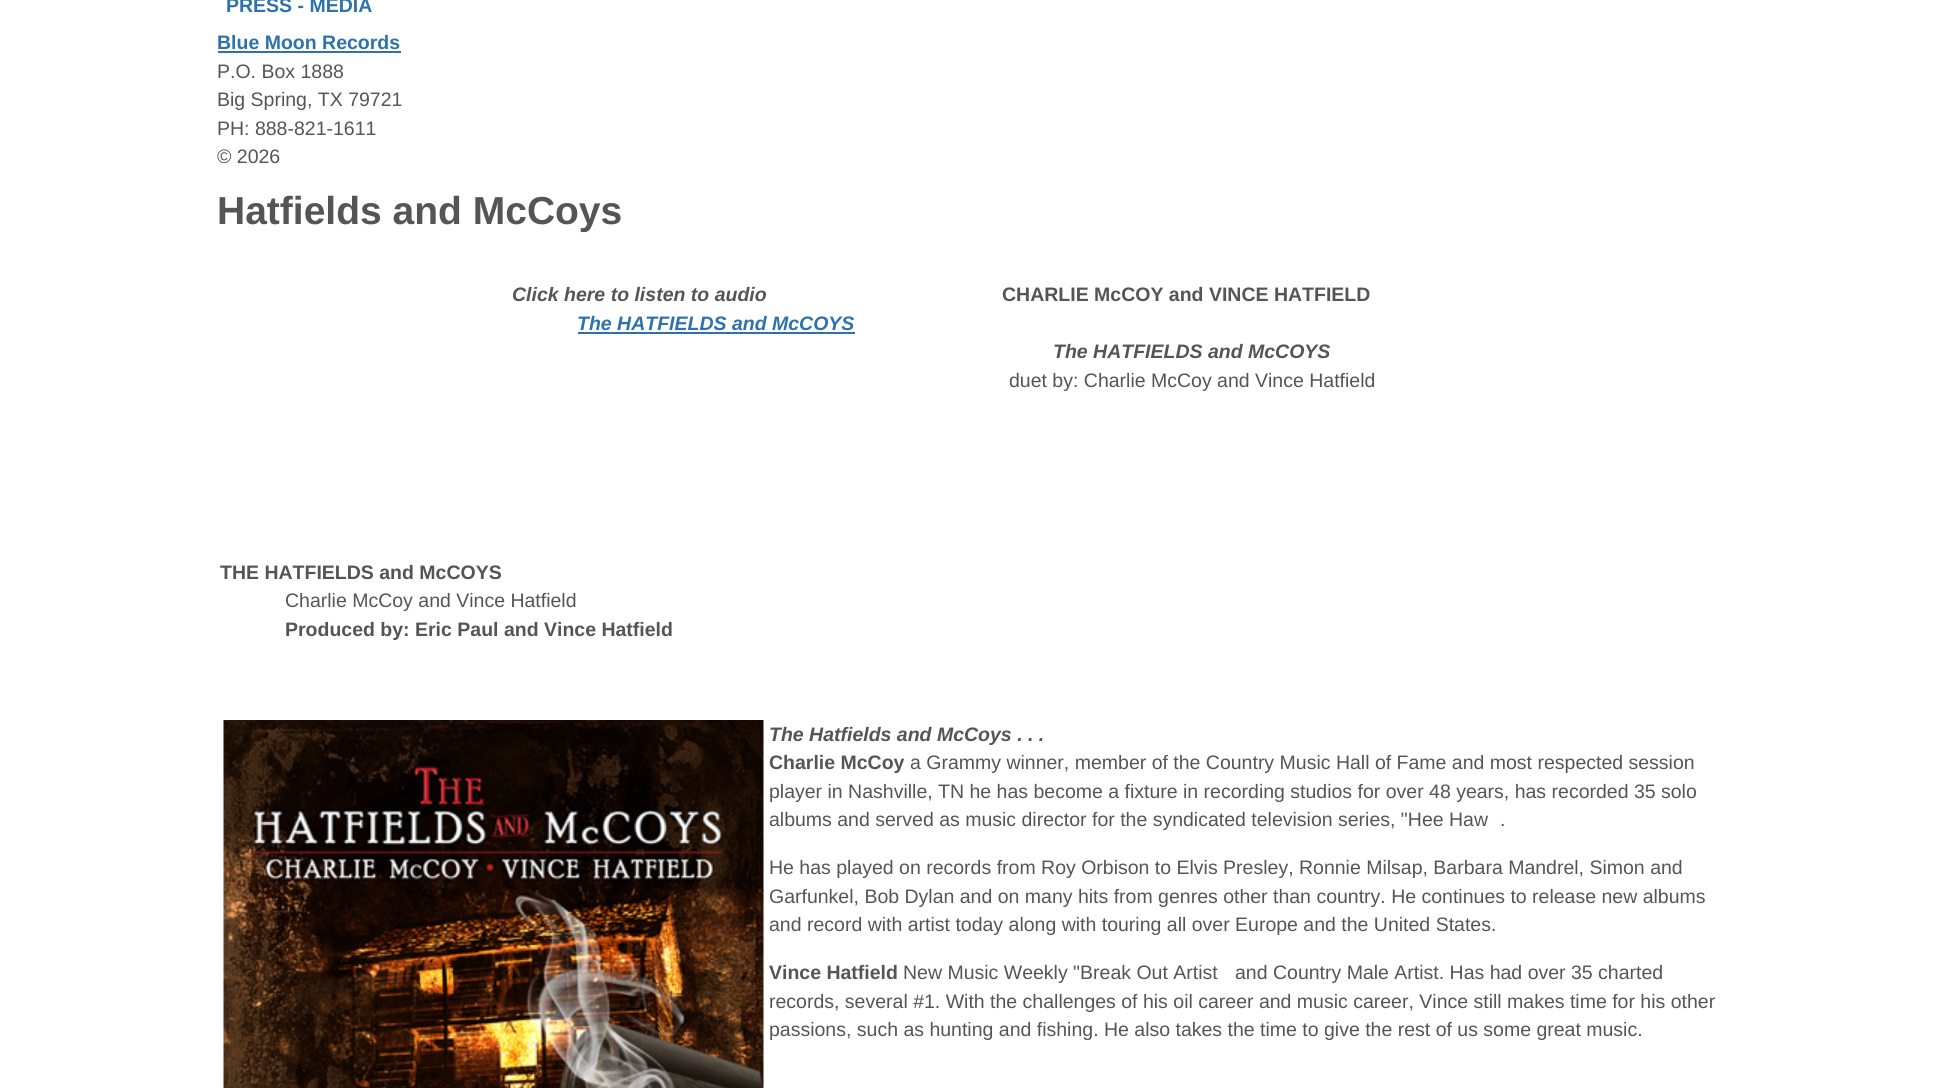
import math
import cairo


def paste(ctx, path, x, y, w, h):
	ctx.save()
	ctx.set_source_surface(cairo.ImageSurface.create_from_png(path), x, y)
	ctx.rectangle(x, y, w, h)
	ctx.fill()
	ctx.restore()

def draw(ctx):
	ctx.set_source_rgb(1, 1, 1)
	ctx.paint()
	ctx.select_font_face('Liberation Sans', cairo.FONT_SLANT_NORMAL, cairo.FONT_WEIGHT_BOLD)
	ctx.set_font_size(19.5)
	ctx.set_source_rgb(0.176, 0.447, 0.675)
	ctx.move_to(226, 12)
	ctx.show_text('PRESS - MEDIA')
	ctx.move_to(217, 49)
	ctx.show_text('Blue Moon Records')
	ctx.rectangle(218, 51, 183, 2)
	ctx.fill()
	ctx.select_font_face('Liberation Sans')
	ctx.set_source_rgb(0.333, 0.333, 0.333)
	for x, y, s in [
		(217, 78, 'P.O. Box 1888'),
		(217, 106, 'Big Spring, TX 79721'),
		(217, 135, 'PH: 888-821-1611'),
		(217, 163, '© 2026'),
	]:
		ctx.move_to(x, y)
		ctx.show_text(s)
	ctx.select_font_face('Liberation Sans', cairo.FONT_SLANT_NORMAL, cairo.FONT_WEIGHT_BOLD)
	ctx.set_font_size(39)
	ctx.move_to(217, 224)
	ctx.show_text('Hatfields and McCoys')
	ctx.select_font_face('Liberation Sans', cairo.FONT_SLANT_ITALIC, cairo.FONT_WEIGHT_BOLD)
	ctx.set_font_size(19.5)
	ctx.move_to(512, 301)
	ctx.show_text('Click here to listen to audio')
	ctx.set_source_rgb(0.176, 0.447, 0.675)
	ctx.move_to(577, 330)
	ctx.show_text('The HATFIELDS and McCOYS')
	ctx.rectangle(578, 332, 277, 2)
	ctx.fill()
	ctx.select_font_face('Liberation Sans', cairo.FONT_SLANT_NORMAL, cairo.FONT_WEIGHT_BOLD)
	ctx.set_source_rgb(0.333, 0.333, 0.333)
	ctx.move_to(1002, 301)
	ctx.show_text('CHARLIE McCOY and VINCE HATFIELD')
	ctx.select_font_face('Liberation Sans', cairo.FONT_SLANT_ITALIC, cairo.FONT_WEIGHT_BOLD)
	ctx.move_to(1053, 358)
	ctx.show_text('The HATFIELDS and McCOYS')
	ctx.select_font_face('Liberation Sans')
	ctx.move_to(1009, 387)
	ctx.show_text('duet by: Charlie McCoy and Vince Hatfield')
	ctx.select_font_face('Liberation Sans', cairo.FONT_SLANT_NORMAL, cairo.FONT_WEIGHT_BOLD)
	ctx.move_to(220, 579)
	ctx.show_text('THE HATFIELDS and McCOYS')
	ctx.select_font_face('Liberation Sans')
	ctx.move_to(285, 607)
	ctx.show_text('Charlie McCoy and Vince Hatfield')
	ctx.select_font_face('Liberation Sans', cairo.FONT_SLANT_NORMAL, cairo.FONT_WEIGHT_BOLD)
	ctx.move_to(285, 636)
	ctx.show_text('Produced by: Eric Paul and Vince Hatfield')
	paste(ctx, 'media/1.png', 223, 720, 541, 368)
	ctx.select_font_face('Liberation Sans', cairo.FONT_SLANT_ITALIC, cairo.FONT_WEIGHT_BOLD)
	ctx.move_to(769, 741)
	ctx.show_text('The Hatfields and McCoys . . .')
	ctx.select_font_face('Liberation Sans', cairo.FONT_SLANT_NORMAL, cairo.FONT_WEIGHT_BOLD)
	ctx.move_to(769, 769)
	ctx.show_text('Charlie McCoy')
	ctx.select_font_face('Liberation Sans')
	for x, y, s in [
		(910, 769, 'a Grammy winner, member of the Country Music Hall of Fame and most respected session'),
		(769, 798, 'player in Nashville, TN he has become a fixture in recording studios for over 48 years, has recorded 35 solo'),
		(769, 826, 'albums and served as music director for the syndicated television series, "Hee Haw'),
		(1500, 826, '.'),
		(769, 874, 'He has played on records from Roy Orbison to Elvis Presley, Ronnie Milsap, Barbara Mandrel, Simon and'),
		(769, 903, 'Garfunkel, Bob Dylan and on many hits from genres other than country. He continues to release new albums'),
		(769, 931, 'and record with artist today along with touring all over Europe and the United States.'),
	]:
		ctx.move_to(x, y)
		ctx.show_text(s)
	ctx.select_font_face('Liberation Sans', cairo.FONT_SLANT_NORMAL, cairo.FONT_WEIGHT_BOLD)
	ctx.move_to(769, 979)
	ctx.show_text('Vince Hatfield')
	ctx.select_font_face('Liberation Sans')
	for x, y, s in [
		(903, 979, 'New Music Weekly "Break Out Artist'),
		(1235, 979, 'and Country Male Artist. Has had over 35 charted'),
		(769, 1008, 'records, several #1. With the challenges of his oil career and music career, Vince still makes time for his other'),
		(769, 1036, 'passions, such as hunting and fishing. He also takes the time to give the rest of us some great music.'),
	]:
		ctx.move_to(x, y)
		ctx.show_text(s)


surface = cairo.ImageSurface(cairo.FORMAT_RGB24, 1933, 1088)
ctx = cairo.Context(surface)
options = cairo.FontOptions()
options.set_hint_metrics(cairo.HINT_METRICS_OFF)
options.set_hint_style(cairo.HINT_STYLE_NONE)
ctx.set_font_options(options)
ctx.set_miter_limit(4)
draw(ctx)
surface.write_to_png('image.png')
